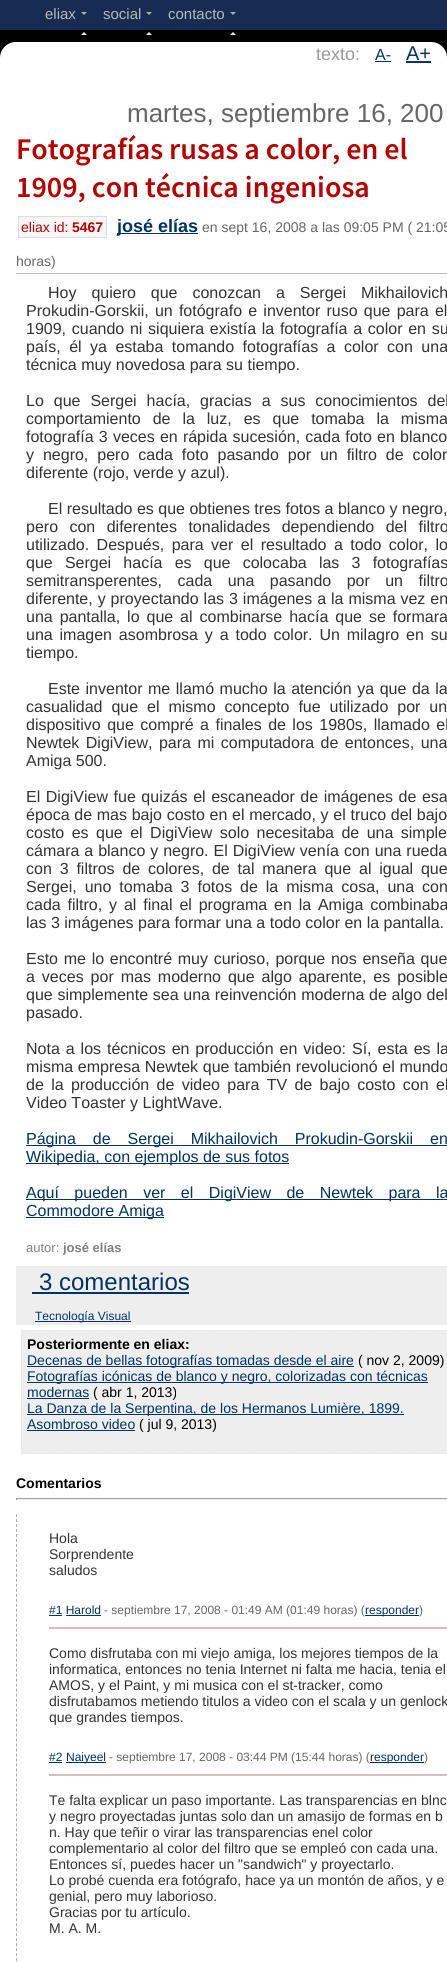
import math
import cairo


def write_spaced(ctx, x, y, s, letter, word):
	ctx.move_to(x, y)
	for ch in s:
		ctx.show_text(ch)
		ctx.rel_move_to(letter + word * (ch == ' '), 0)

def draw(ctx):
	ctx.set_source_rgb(0, 0, 0)
	ctx.paint()
	ctx.set_source_rgb(0.09, 0.169, 0.325)
	ctx.rectangle(0, 0, 447, 30)
	ctx.fill()
	ctx.select_font_face('Liberation Sans')
	ctx.set_font_size(15)
	ctx.set_source_rgb(0.722, 0.722, 0.722)
	ctx.move_to(45, 19)
	ctx.show_text('eliax')
	ctx.set_source_rgb(0.678, 0.678, 0.678)
	ctx.new_path()
	ctx.move_to(81, 12)
	ctx.line_to(87, 12)
	ctx.line_to(84, 15)
	ctx.close_path()
	ctx.fill()
	ctx.set_source_rgb(0.902, 0.902, 0.902)
	ctx.new_path()
	ctx.move_to(87, 35)
	ctx.line_to(81, 35)
	ctx.line_to(84, 32)
	ctx.close_path()
	ctx.fill()
	ctx.set_source_rgb(0.722, 0.722, 0.722)
	ctx.move_to(103, 19)
	ctx.show_text('social')
	ctx.set_source_rgb(0.678, 0.678, 0.678)
	ctx.new_path()
	ctx.move_to(146, 12)
	ctx.line_to(152, 12)
	ctx.line_to(149, 15)
	ctx.close_path()
	ctx.fill()
	ctx.set_source_rgb(0.902, 0.902, 0.902)
	ctx.new_path()
	ctx.move_to(152, 35)
	ctx.line_to(146, 35)
	ctx.line_to(149, 32)
	ctx.close_path()
	ctx.fill()
	ctx.set_source_rgb(0.722, 0.722, 0.722)
	ctx.move_to(168, 19)
	ctx.show_text('contacto')
	ctx.set_source_rgb(0.678, 0.678, 0.678)
	ctx.new_path()
	ctx.move_to(230, 12)
	ctx.line_to(236, 12)
	ctx.line_to(233, 15)
	ctx.close_path()
	ctx.fill()
	ctx.set_source_rgb(0.902, 0.902, 0.902)
	ctx.new_path()
	ctx.move_to(236, 35)
	ctx.line_to(230, 35)
	ctx.line_to(233, 32)
	ctx.close_path()
	ctx.fill()
	ctx.set_source_rgb(1, 1, 1)
	ctx.new_path()
	ctx.move_to(16, 42)
	ctx.line_to(431, 42)
	ctx.curve_to(440, 42, 447, 49, 447, 58)
	ctx.line_to(447, 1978)
	ctx.line_to(0, 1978)
	ctx.line_to(0, 58)
	ctx.curve_to(0, 49, 7, 42, 16, 42)
	ctx.close_path()
	ctx.fill()
	ctx.set_font_size(18)
	ctx.set_source_rgb(0.6, 0.6, 0.6)
	ctx.move_to(316, 60)
	ctx.show_text('texto:')
	ctx.set_font_size(16)
	ctx.set_source_rgb(0, 0.2, 0.4)
	ctx.move_to(375, 60)
	ctx.show_text('A-')
	ctx.rectangle(375, 61, 16, 1)
	ctx.fill()
	ctx.set_font_size(20)
	ctx.move_to(406, 60)
	ctx.show_text('A+')
	ctx.rectangle(406, 61, 25, 2)
	ctx.fill()
	ctx.set_font_size(26)
	ctx.set_source_rgb(0.4, 0.4, 0.4)
	ctx.move_to(127, 122)
	ctx.show_text('martes, septiembre 16, 200')
	ctx.set_source_rgb(0.733, 0.733, 0.733)
	ctx.rectangle(16, 273, 431, 1)
	ctx.fill()
	ctx.select_font_face('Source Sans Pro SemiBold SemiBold')
	ctx.set_font_size(30)
	ctx.set_source_rgb(0.733, 0, 0)
	ctx.move_to(16, 159)
	ctx.show_text('Fotografías rusas a color, en el')
	ctx.move_to(16, 197)
	ctx.show_text('1909, con técnica ingeniosa')
	ctx.set_source_rgb(0.961, 0.961, 0.961)
	ctx.rectangle(19, 217, 87, 20)
	ctx.fill()
	ctx.select_font_face('Liberation Sans')
	ctx.set_font_size(14)
	ctx.set_source_rgb(0.733, 0, 0)
	ctx.move_to(21, 232)
	ctx.show_text('eliax id:')
	ctx.set_source_rgb(0.867, 0.867, 0.867)
	ctx.rectangle(18, 216, 89, 1)
	ctx.rectangle(18, 237, 54, 1)
	ctx.rectangle(18, 216, 1, 22)
	ctx.fill()
	ctx.select_font_face('Liberation Sans', cairo.FONT_SLANT_NORMAL, cairo.FONT_WEIGHT_BOLD)
	ctx.set_source_rgb(0.733, 0, 0)
	ctx.move_to(72, 232)
	ctx.show_text('5467')
	ctx.set_source_rgb(0.867, 0.867, 0.867)
	ctx.rectangle(106, 216, 1, 22)
	ctx.rectangle(72, 237, 35, 1)
	ctx.fill()
	ctx.set_source_rgb(0, 0.2, 0.4)
	ctx.rectangle(117, 233, 81, 1)
	ctx.fill()
	ctx.set_font_size(18)
	ctx.move_to(117, 232)
	ctx.show_text('josé elías')
	ctx.select_font_face('Liberation Sans')
	ctx.set_font_size(14)
	ctx.set_source_rgb(0.4, 0.4, 0.4)
	ctx.move_to(202, 232)
	ctx.show_text('en sept 16, 2008 a las 09:05 PM ( 21:05')
	ctx.move_to(16, 266)
	ctx.show_text('horas)')
	ctx.set_font_size(16)
	ctx.set_source_rgb(0.2, 0.2, 0.2)
	write_spaced(ctx, 48, 298, 'Hoy quiero que conozcan a Sergei Mikhailovich', 0, 10.5)
	write_spaced(ctx, 26, 316, 'Prokudin-Gorskii, un fotógrafo e inventor ruso que para el', 0, 1.75)
	write_spaced(ctx, 26, 334, '1909, cuando ni siquiera existía la fotografía a color en su', 0, 1.25)
	write_spaced(ctx, 26, 352, 'país, él ya estaba tomando fotografías a color con una', 0, 4)
	ctx.move_to(26, 370)
	ctx.show_text('técnica muy novedosa para su tiempo.')
	write_spaced(ctx, 26, 406, 'Lo que Sergei hacía, gracias a sus conocimientos del', 0, 5.5)
	write_spaced(ctx, 26, 424, 'comportamiento de la luz, es que tomaba la misma', 0, 7.5)
	write_spaced(ctx, 26, 442, 'fotografía 3 veces en rápida sucesión, cada foto en blanco', 0, 0.75)
	write_spaced(ctx, 26, 460, 'y negro, pero cada foto pasando por un filtro de color', 0, 4.5)
	ctx.move_to(26, 478)
	ctx.show_text('diferente (rojo, verde y azul).')
	ctx.move_to(48, 514)
	ctx.show_text('El resultado es que obtienes tres fotos a blanco y negro,')
	write_spaced(ctx, 26, 532, 'pero con diferentes tonalidades dependiendo del filtro', 0, 7)
	write_spaced(ctx, 26, 550, 'utilizado. Después, para ver el resultado a todo color, lo', 0, 3)
	write_spaced(ctx, 26, 568, 'que Sergei hacía es que colocaba las 3 fotografías', 0, 7.75)
	write_spaced(ctx, 26, 586, 'semitransperentes, cada una pasando por un filtro', 0, 11)
	write_spaced(ctx, 26, 604, 'diferente, y proyectando las 3 imágenes a la misma vez en', 0, 0.5)
	write_spaced(ctx, 26, 622, 'una pantalla, lo que al combinarse hacía que se formara', 0, 2.5)
	write_spaced(ctx, 26, 640, 'una imagen asombrosa y a todo color. Un milagro en su', 0, 2.4)
	ctx.move_to(26, 658)
	ctx.show_text('tiempo.')
	write_spaced(ctx, 48, 694, 'Este inventor me llamó mucho la atención ya que da la', 0, 1.1)
	write_spaced(ctx, 26, 712, 'casualidad que el mismo concepto fue utilizado por un', 0, 4.5)
	write_spaced(ctx, 26, 730, 'dispositivo que compré a finales de los 1980s, llamado el', 0, 2)
	write_spaced(ctx, 26, 748, 'Newtek DigiView, para mi computadora de entonces, una', 0, 2)
	ctx.move_to(26, 766)
	ctx.show_text('Amiga 500.')
	write_spaced(ctx, 26, 802, 'El DigiView fue quizás el escaneador de imágenes de esa', 0, 1.1)
	write_spaced(ctx, 26, 820, 'época de mas bajo costo en el mercado, y el truco del bajo', 0, 0.25)
	write_spaced(ctx, 26, 838, 'costo es que el DigiView solo necesitaba de una simple', 0, 3)
	write_spaced(ctx, 26, 856, 'cámara a blanco y negro. El DigiView venía con una rueda', 0, 0.5)
	write_spaced(ctx, 26, 874, 'con 3 filtros de colores, de tal manera que al igual que', 0, 3.4)
	write_spaced(ctx, 26, 892, 'Sergei, uno tomaba 3 fotos de la misma cosa, una con', 0, 3.5)
	write_spaced(ctx, 26, 910, 'cada filtro, y al final el programa en la Amiga combinaba', 0, 2.4)
	ctx.move_to(26, 928)
	ctx.show_text('las 3 imágenes para formar una a todo color en la pantalla.')
	write_spaced(ctx, 26, 964, 'Esto me lo encontré muy curioso, porque nos enseña que', 0, 1.25)
	write_spaced(ctx, 26, 982, 'a veces por mas moderno que algo aparente, es posible', 0, 2.5)
	write_spaced(ctx, 26, 1000, 'que simplemente sea una reinvención moderna de algo del', 0, 0.25)
	ctx.move_to(26, 1018)
	ctx.show_text('pasado.')
	write_spaced(ctx, 26, 1054, 'Nota a los técnicos en producción en video: Sí, esta es la', 0, 1.5)
	write_spaced(ctx, 26, 1072, 'misma empresa Newtek que también revolucionó el mundo', 0, 0.25)
	write_spaced(ctx, 26, 1090, 'de la producción de video para TV de bajo costo con el', 0, 2.9)
	ctx.move_to(26, 1108)
	ctx.show_text('Video Toaster y LightWave.')
	ctx.set_source_rgb(0, 0.2, 0.4)
	ctx.rectangle(26, 1145, 421, 1)
	ctx.fill()
	write_spaced(ctx, 26, 1144, 'Página de Sergei Mikhailovich Prokudin-Gorskii en', 0, 12.5)
	ctx.rectangle(26, 1163, 263, 1)
	ctx.fill()
	ctx.move_to(26, 1162)
	ctx.show_text('Wikipedia, con ejemplos de sus fotos')
	ctx.rectangle(26, 1199, 421, 1)
	ctx.fill()
	write_spaced(ctx, 26, 1198, 'Aquí pueden ver el DigiView de Newtek para la', 0, 11)
	ctx.rectangle(26, 1217, 138, 1)
	ctx.fill()
	ctx.move_to(26, 1216)
	ctx.show_text('Commodore Amiga')
	ctx.set_font_size(13)
	ctx.set_source_rgb(0.502, 0.502, 0.502)
	ctx.move_to(26, 1252)
	ctx.show_text('autor:')
	ctx.select_font_face('Liberation Sans', cairo.FONT_SLANT_NORMAL, cairo.FONT_WEIGHT_BOLD)
	ctx.move_to(63, 1252)
	ctx.show_text('josé elías')
	ctx.set_source_rgb(0.933, 0.933, 0.933)
	ctx.rectangle(16, 1266, 431, 59)
	ctx.fill()
	ctx.select_font_face('Liberation Sans')
	ctx.set_font_size(24)
	ctx.set_source_rgb(0, 0.2, 0.4)
	ctx.move_to(39, 1290)
	ctx.show_text('3 comentarios')
	ctx.rectangle(32, 1292, 157, 2)
	ctx.fill()
	ctx.rectangle(35, 1321, 96, 1)
	ctx.fill()
	ctx.set_font_size(12)
	ctx.move_to(35, 1320)
	ctx.show_text('Tecnología Visual')
	ctx.set_source_rgb(0.933, 0.933, 0.933)
	ctx.rectangle(21, 1330, 426, 124)
	ctx.fill()
	ctx.new_path()
	ctx.move_to(21, 1330.5)
	ctx.line_to(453, 1330.5)
	ctx.set_source_rgb(0.902, 0.902, 0.902)
	ctx.set_line_width(1)
	ctx.set_dash([3, 1.99])
	ctx.stroke()
	ctx.new_path()
	ctx.move_to(21, 1453.5)
	ctx.line_to(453, 1453.5)
	ctx.stroke()
	ctx.new_path()
	ctx.move_to(21.5, 1330)
	ctx.line_to(21.5, 1454)
	ctx.set_dash([3, 2.04])
	ctx.stroke()
	ctx.select_font_face('Liberation Sans', cairo.FONT_SLANT_NORMAL, cairo.FONT_WEIGHT_BOLD)
	ctx.set_font_size(14)
	ctx.set_source_rgb(0, 0, 0)
	ctx.move_to(27, 1349)
	ctx.show_text('Posteriormente en eliax:')
	ctx.set_source_rgb(0, 0.2, 0.4)
	ctx.rectangle(27, 1366, 327, 1)
	ctx.fill()
	ctx.select_font_face('Liberation Sans')
	ctx.move_to(27, 1365)
	ctx.show_text('Decenas de bellas fotografías tomadas desde el aire')
	ctx.set_source_rgb(0, 0, 0)
	ctx.move_to(358, 1365)
	ctx.show_text('( nov 2, 2009)')
	ctx.set_source_rgb(0, 0.2, 0.4)
	ctx.rectangle(27, 1382, 401, 1)
	ctx.fill()
	ctx.move_to(27, 1381)
	ctx.show_text('Fotografías icónicas de blanco y negro, colorizadas con técnicas')
	ctx.move_to(27, 1397)
	ctx.show_text('modernas')
	ctx.rectangle(27, 1398, 62, 1)
	ctx.fill()
	ctx.set_source_rgb(0, 0, 0)
	ctx.move_to(93, 1397)
	ctx.show_text('( abr 1, 2013)')
	ctx.set_source_rgb(0, 0.2, 0.4)
	ctx.rectangle(27, 1414, 377, 1)
	ctx.fill()
	ctx.move_to(27, 1413)
	ctx.show_text('La Danza de la Serpentina, de los Hermanos Lumière, 1899.')
	ctx.move_to(27, 1429)
	ctx.show_text('Asombroso video')
	ctx.rectangle(27, 1430, 108, 1)
	ctx.fill()
	ctx.set_source_rgb(0, 0, 0)
	ctx.move_to(139, 1429)
	ctx.show_text('( jul 9, 2013)')
	ctx.select_font_face('Liberation Sans', cairo.FONT_SLANT_NORMAL, cairo.FONT_WEIGHT_BOLD)
	ctx.move_to(16, 1488)
	ctx.show_text('Comentarios')
	ctx.set_source_rgb(0.624, 0.624, 0.624)
	ctx.rectangle(16, 1498, 431, 1)
	ctx.fill()
	ctx.set_source_rgb(0.933, 0.933, 0.933)
	ctx.rectangle(16, 1499, 431, 1)
	ctx.fill()
	ctx.set_source_rgb(0.624, 0.624, 0.624)
	ctx.rectangle(16, 1498, 1, 2)
	ctx.fill()
	ctx.new_path()
	ctx.move_to(16.5, 1514)
	ctx.line_to(16.5, 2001)
	ctx.set_source_rgb(0.667, 0.667, 0.667)
	ctx.set_dash([3, 1.99])
	ctx.stroke()
	ctx.select_font_face('Liberation Sans')
	ctx.set_source_rgb(0.2, 0.2, 0.2)
	for x, y, s in [
		(49, 1543, 'Hola'),
		(49, 1559, 'Sorprendente'),
		(49, 1575, 'saludos'),
	]:
		ctx.move_to(x, y)
		ctx.show_text(s)
	ctx.set_source_rgb(0.867, 0.733, 0.733)
	ctx.rectangle(49, 1627, 398, 2)
	ctx.fill()
	ctx.set_font_size(12)
	ctx.set_source_rgb(0, 0.2, 0.4)
	ctx.move_to(49, 1614)
	ctx.show_text('#1 Harold')
	ctx.rectangle(49, 1615, 13, 1)
	ctx.fill()
	ctx.set_source_rgb(0.4, 0.4, 0.4)
	ctx.move_to(104, 1614)
	ctx.show_text('- septiembre 17, 2008 - 01:49 AM (01:49 horas) (')
	ctx.set_source_rgb(0, 0.2, 0.4)
	ctx.rectangle(365, 1615, 54, 1)
	ctx.fill()
	ctx.move_to(365, 1614)
	ctx.show_text('responder')
	ctx.set_source_rgb(0.4, 0.4, 0.4)
	ctx.move_to(419, 1614)
	ctx.show_text(')')
	ctx.set_source_rgb(0, 0.2, 0.4)
	ctx.rectangle(66, 1615, 35, 1)
	ctx.fill()
	ctx.set_font_size(14)
	ctx.set_source_rgb(0.2, 0.2, 0.2)
	for x, y, s in [
		(49, 1658, 'Como disfrutaba con mi viejo amiga, los mejores tiempos de la'),
		(49, 1674, 'informatica, entonces no tenia Internet ni falta me hacia, tenia el'),
		(49, 1690, 'AMOS, y el Paint, y mi musica con el st-tracker, como'),
		(49, 1706, 'disfrutabamos metiendo titulos a video con el scala y un genlock'),
		(49, 1722, 'que grandes tiempos.'),
	]:
		ctx.move_to(x, y)
		ctx.show_text(s)
	ctx.set_source_rgb(0.867, 0.733, 0.733)
	ctx.rectangle(49, 1774, 398, 2)
	ctx.fill()
	ctx.set_font_size(12)
	ctx.set_source_rgb(0, 0.2, 0.4)
	ctx.move_to(49, 1761)
	ctx.show_text('#2')
	ctx.rectangle(49, 1762, 13, 1)
	ctx.fill()
	ctx.rectangle(66, 1762, 40, 1)
	ctx.fill()
	ctx.move_to(66, 1761)
	ctx.show_text('Naiyeel')
	ctx.set_source_rgb(0.4, 0.4, 0.4)
	ctx.move_to(109, 1761)
	ctx.show_text('- septiembre 17, 2008 - 03:44 PM (15:44 horas) (')
	ctx.set_source_rgb(0, 0.2, 0.4)
	ctx.rectangle(370, 1762, 54, 1)
	ctx.fill()
	ctx.move_to(370, 1761)
	ctx.show_text('responder')
	ctx.set_source_rgb(0.4, 0.4, 0.4)
	ctx.move_to(424, 1761)
	ctx.show_text(')')
	ctx.set_font_size(14)
	ctx.set_source_rgb(0.2, 0.2, 0.2)
	for x, y, s in [
		(49, 1805, 'Te falta explicar un paso importante. Las transparencias en blnc'),
		(49, 1821, 'y negro proyectadas juntas solo dan un amasijo de formas en b'),
		(49, 1837, 'n. Hay que teñir o virar las transparencias enel color'),
		(49, 1853, 'complementario al color del filtro que se empleó con cada una.'),
		(49, 1869, 'Entonces sí, puedes hacer un "sandwich" y proyectarlo.'),
		(49, 1885, 'Lo probé cuenda era fotógrafo, hace ya un montón de años, y e'),
		(49, 1901, 'genial, pero muy laborioso.'),
		(49, 1917, 'Gracias por tu artículo.'),
		(49, 1933, 'M. A. M.'),
	]:
		ctx.move_to(x, y)
		ctx.show_text(s)


surface = cairo.ImageSurface(cairo.FORMAT_RGB24, 447, 1962)
ctx = cairo.Context(surface)
options = cairo.FontOptions()
options.set_hint_metrics(cairo.HINT_METRICS_OFF)
options.set_hint_style(cairo.HINT_STYLE_NONE)
ctx.set_font_options(options)
ctx.set_miter_limit(4)
draw(ctx)
surface.write_to_png('image.png')
